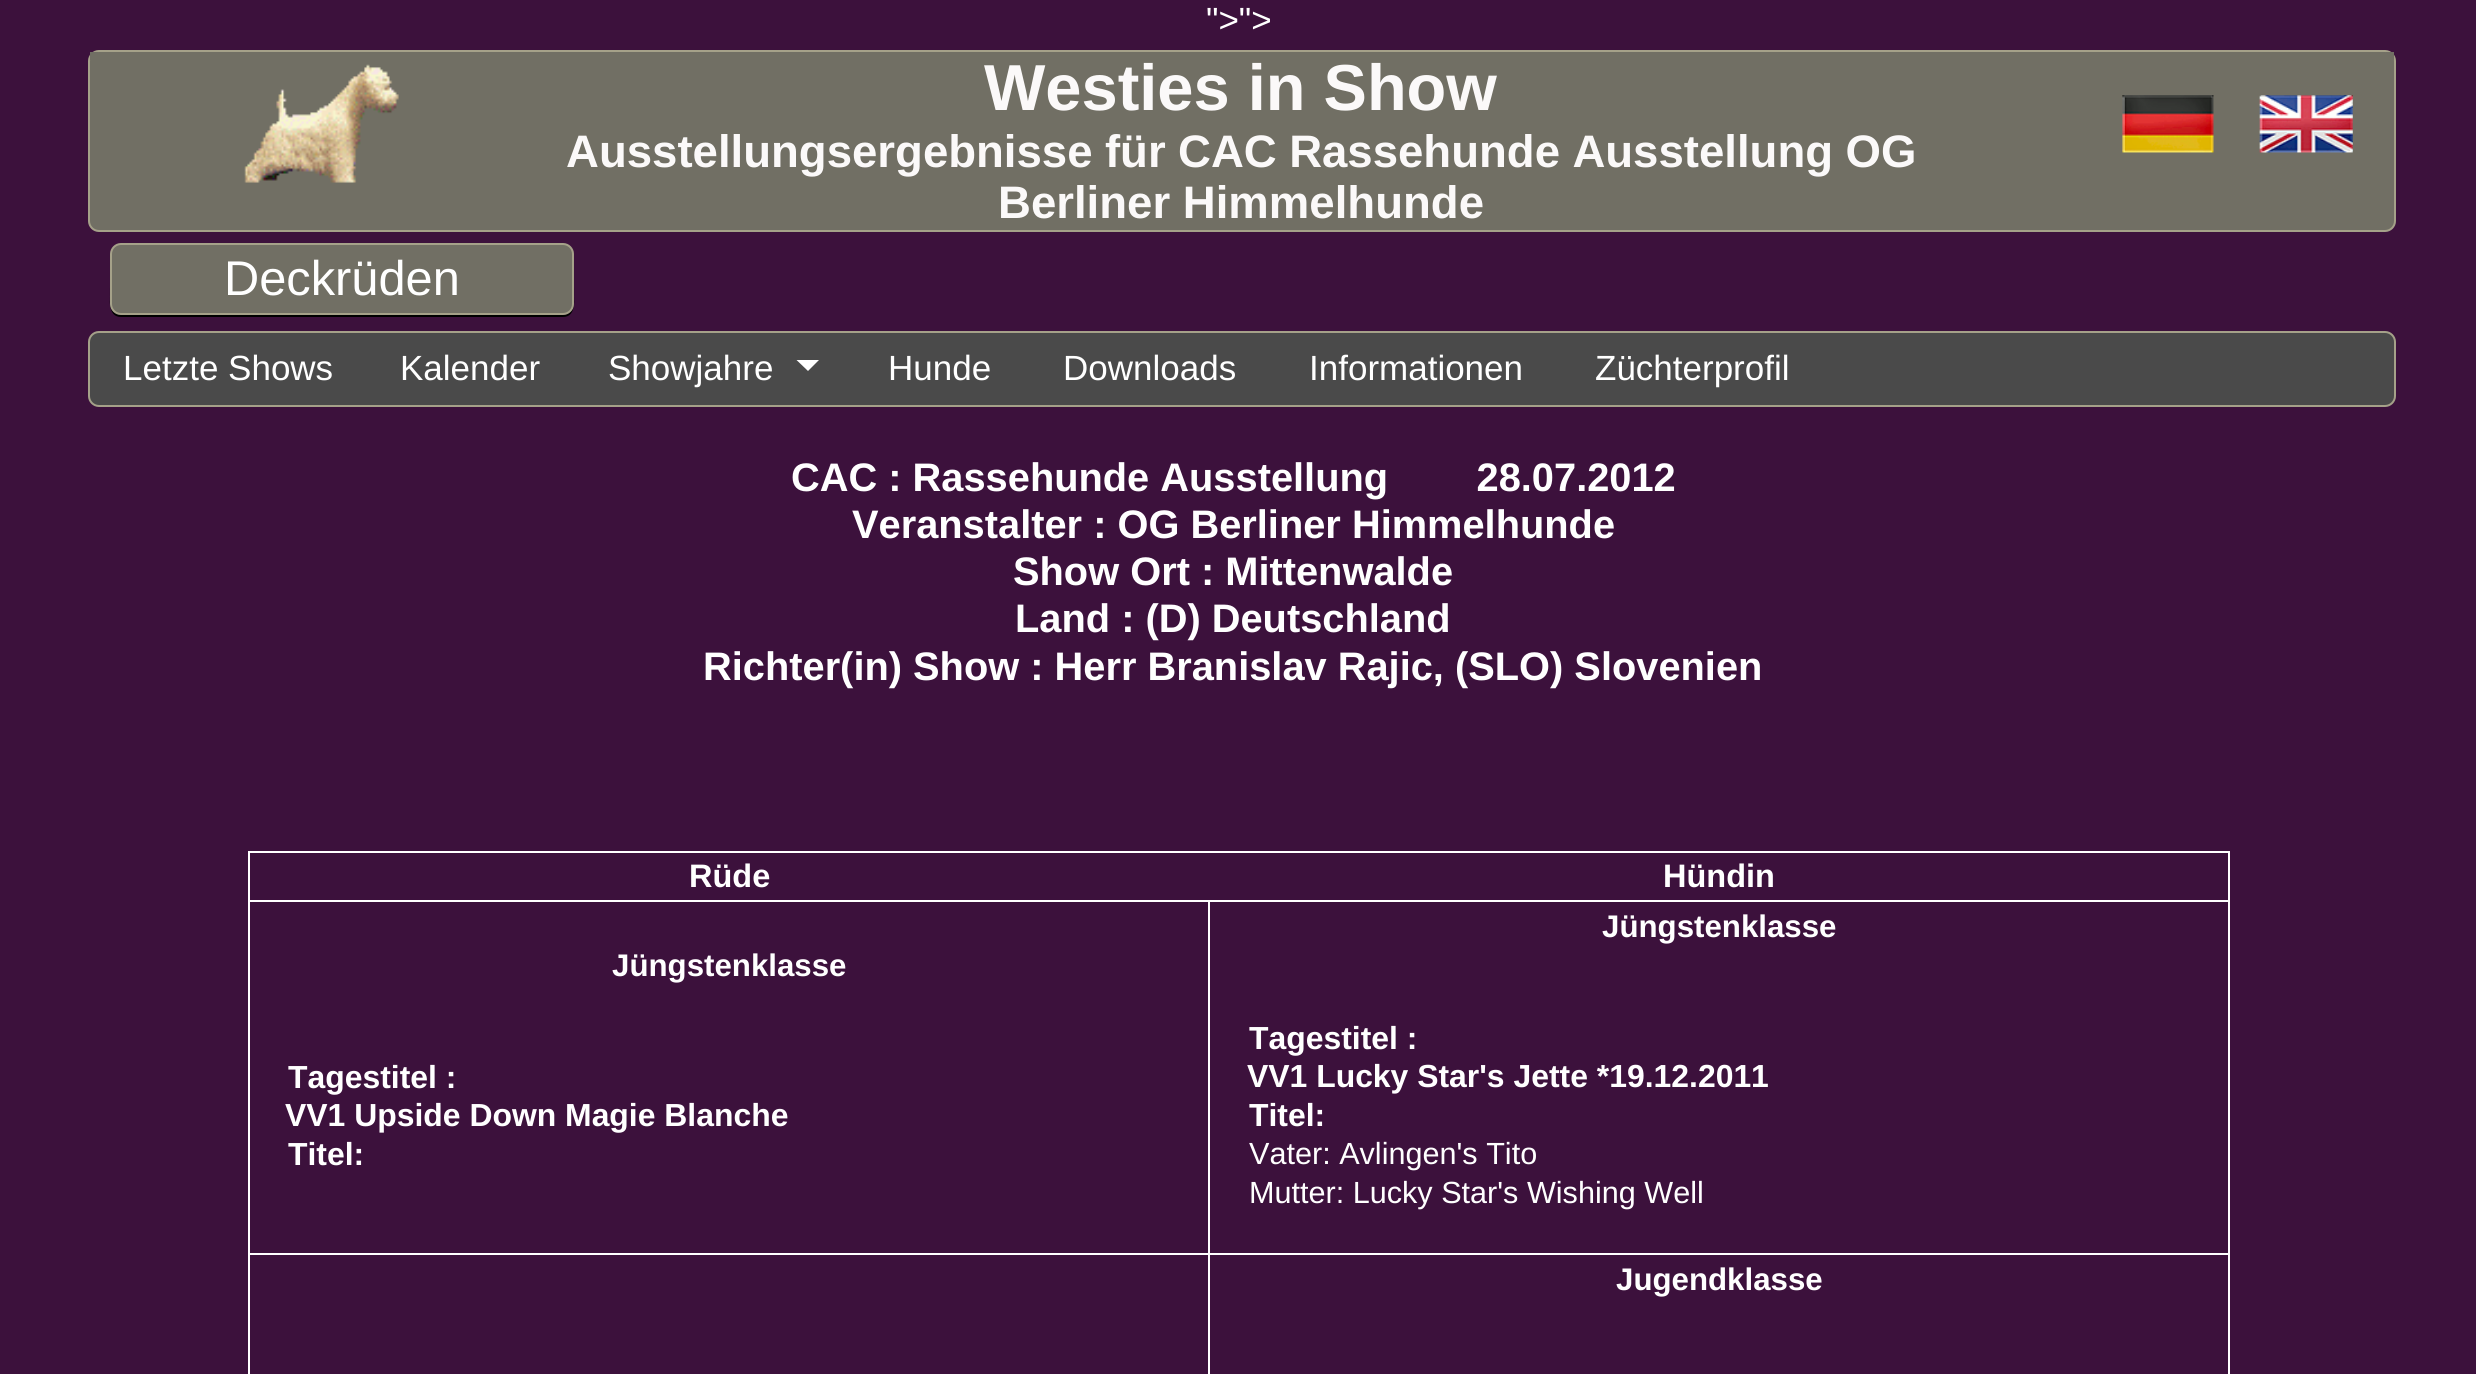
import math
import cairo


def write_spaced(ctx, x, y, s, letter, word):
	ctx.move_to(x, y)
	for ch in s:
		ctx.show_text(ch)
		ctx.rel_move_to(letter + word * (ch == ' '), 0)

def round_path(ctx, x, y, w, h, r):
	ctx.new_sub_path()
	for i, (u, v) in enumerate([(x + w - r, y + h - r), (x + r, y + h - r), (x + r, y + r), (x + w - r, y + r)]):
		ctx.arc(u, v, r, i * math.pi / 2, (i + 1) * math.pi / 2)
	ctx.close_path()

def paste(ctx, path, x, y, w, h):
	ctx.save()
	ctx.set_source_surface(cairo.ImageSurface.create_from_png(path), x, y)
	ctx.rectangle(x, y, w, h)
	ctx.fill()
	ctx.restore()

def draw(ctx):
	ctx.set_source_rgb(0.235, 0.067, 0.235)
	ctx.paint()
	ctx.select_font_face('Liberation Sans')
	ctx.set_font_size(35)
	ctx.set_source_rgb(1, 1, 1)
	ctx.move_to(1206, 32)
	ctx.show_text('">">')
	ctx.set_source_rgb(0.443, 0.435, 0.392)
	round_path(ctx, 89, 51, 2306, 180, 10)
	ctx.fill_preserve()
	ctx.set_source_rgb(0.647, 0.631, 0.537)
	ctx.stroke()
	ctx.set_source_rgb(0.443, 0.435, 0.392)
	ctx.rectangle(90, 52, 8, 8)
	ctx.fill()
	paste(ctx, 'media/1.png', 244, 64, 155, 119)
	ctx.select_font_face('Liberation Sans', cairo.FONT_SLANT_NORMAL, cairo.FONT_WEIGHT_BOLD)
	ctx.set_font_size(65)
	ctx.set_source_rgb(0.984, 0.973, 0.973)
	ctx.move_to(984, 110)
	ctx.show_text('Westies in Show')
	ctx.set_font_size(45.55)
	write_spaced(ctx, 566, 167, 'Ausstellungsergebnisse für CAC Rassehunde Ausstellung OG', 0, -0.25)
	ctx.move_to(998, 218)
	ctx.show_text('Berliner Himmelhunde')
	ctx.set_source_rgb(0.443, 0.435, 0.392)
	ctx.rectangle(2386, 52, 8, 8)
	ctx.fill()
	paste(ctx, 'media/2.png', 2122, 95, 92, 58)
	paste(ctx, 'media/3.png', 2259, 95, 94, 58)
	ctx.set_source_rgb(0, 0, 0)
	ctx.new_path()
	ctx.move_to(110, 254)
	ctx.line_to(110, 289)
	ctx.curve_to(110, 298, 107, 317, 121, 317)
	ctx.line_to(563, 317)
	ctx.curve_to(577, 317, 574, 298, 574, 289)
	ctx.line_to(574, 254)
	ctx.line_to(574, 287)
	ctx.curve_to(574, 296, 577, 315, 562, 315)
	ctx.line_to(122, 315)
	ctx.curve_to(107, 315, 110, 296, 110, 287)
	ctx.close_path()
	ctx.fill()
	ctx.set_source_rgb(0.443, 0.435, 0.392)
	round_path(ctx, 111, 244, 462, 70, 10)
	ctx.fill_preserve()
	ctx.set_source_rgb(0.647, 0.631, 0.537)
	ctx.stroke()
	ctx.select_font_face('Liberation Sans')
	ctx.set_font_size(48.75)
	ctx.set_source_rgb(1, 1, 1)
	ctx.move_to(224, 295)
	ctx.show_text('Deckrüden')
	ctx.set_source_rgb(0.29, 0.29, 0.29)
	round_path(ctx, 89, 332, 2306, 74, 10)
	ctx.fill_preserve()
	ctx.set_source_rgb(0.647, 0.631, 0.537)
	ctx.stroke()
	ctx.set_font_size(35)
	ctx.set_source_rgb(1, 1, 1)
	for x, y, s in [
		(123, 380, 'Letzte Shows'),
		(400, 380, 'Kalender'),
		(608, 380, 'Showjahre'),
	]:
		ctx.move_to(x, y)
		ctx.show_text(s)
	ctx.new_path()
	ctx.move_to(796.5, 360)
	ctx.line_to(819, 360)
	ctx.line_to(808, 371)
	ctx.close_path()
	ctx.fill()
	for x, y, s in [
		(888, 380, 'Hunde'),
		(1063, 380, 'Downloads'),
		(1309, 380, 'Informationen'),
		(1595, 380, 'Züchterprofil'),
	]:
		ctx.move_to(x, y)
		ctx.show_text(s)
	ctx.select_font_face('Liberation Sans', cairo.FONT_SLANT_NORMAL, cairo.FONT_WEIGHT_BOLD)
	ctx.set_font_size(39.8)
	for x, y, s in [
		(791, 491, 'CAC : Rassehunde Ausstellung        28.07.2012'),
		(852, 538, 'Veranstalter : OG Berliner Himmelhunde'),
		(1013, 585, 'Show Ort : Mittenwalde'),
		(1015, 632, 'Land : (D) Deutschland'),
		(703, 680, 'Richter(in) Show : Herr Branislav Rajic, (SLO) Slovenien'),
	]:
		ctx.move_to(x, y)
		ctx.show_text(s)
	ctx.rectangle(248, 851, 1982, 2)
	ctx.rectangle(2228, 851, 2, 523)
	ctx.rectangle(248, 851, 2, 523)
	ctx.fill()
	ctx.set_font_size(32.5)
	ctx.move_to(689, 887)
	ctx.show_text('Rüde')
	ctx.move_to(1663, 887)
	ctx.show_text('Hündin')
	ctx.rectangle(1208, 900, 1022, 2)
	ctx.rectangle(1208, 1253, 1022, 2)
	ctx.rectangle(1208, 1253, 2, 121)
	ctx.rectangle(248, 1253, 963, 2)
	ctx.rectangle(1208, 900, 2, 356)
	ctx.rectangle(248, 900, 963, 2)
	ctx.fill()
	ctx.set_font_size(31.25)
	ctx.move_to(612, 976)
	ctx.show_text('Jüngstenklasse')
	ctx.set_font_size(31.9)
	for x, y, s in [
		(288, 1088, 'Tagestitel :'),
		(285, 1126, 'VV1 Upside Down Magie Blanche'),
		(288, 1165, 'Titel:'),
	]:
		ctx.move_to(x, y)
		ctx.show_text(s)
	ctx.set_font_size(31.25)
	ctx.move_to(1602, 937)
	ctx.show_text('Jüngstenklasse')
	ctx.set_font_size(31.9)
	for x, y, s in [
		(1249, 1049, 'Tagestitel :'),
		(1247, 1087, 'VV1 Lucky Star\'s Jette *19.12.2011'),
		(1249, 1126, 'Titel:'),
	]:
		ctx.move_to(x, y)
		ctx.show_text(s)
	ctx.select_font_face('Liberation Sans')
	ctx.set_font_size(30.6)
	ctx.move_to(1249, 1164)
	ctx.show_text('Vater: Avlingen\'s Tito')
	ctx.move_to(1249, 1203)
	ctx.show_text('Mutter: Lucky Star\'s Wishing Well')
	ctx.select_font_face('Liberation Sans', cairo.FONT_SLANT_NORMAL, cairo.FONT_WEIGHT_BOLD)
	ctx.set_font_size(31.25)
	ctx.move_to(1616, 1290)
	ctx.show_text('Jugendklasse')


surface = cairo.ImageSurface(cairo.FORMAT_RGB24, 2476, 1374)
ctx = cairo.Context(surface)
options = cairo.FontOptions()
options.set_hint_metrics(cairo.HINT_METRICS_OFF)
options.set_hint_style(cairo.HINT_STYLE_NONE)
ctx.set_font_options(options)
ctx.set_miter_limit(4)
draw(ctx)
surface.write_to_png('image.png')
